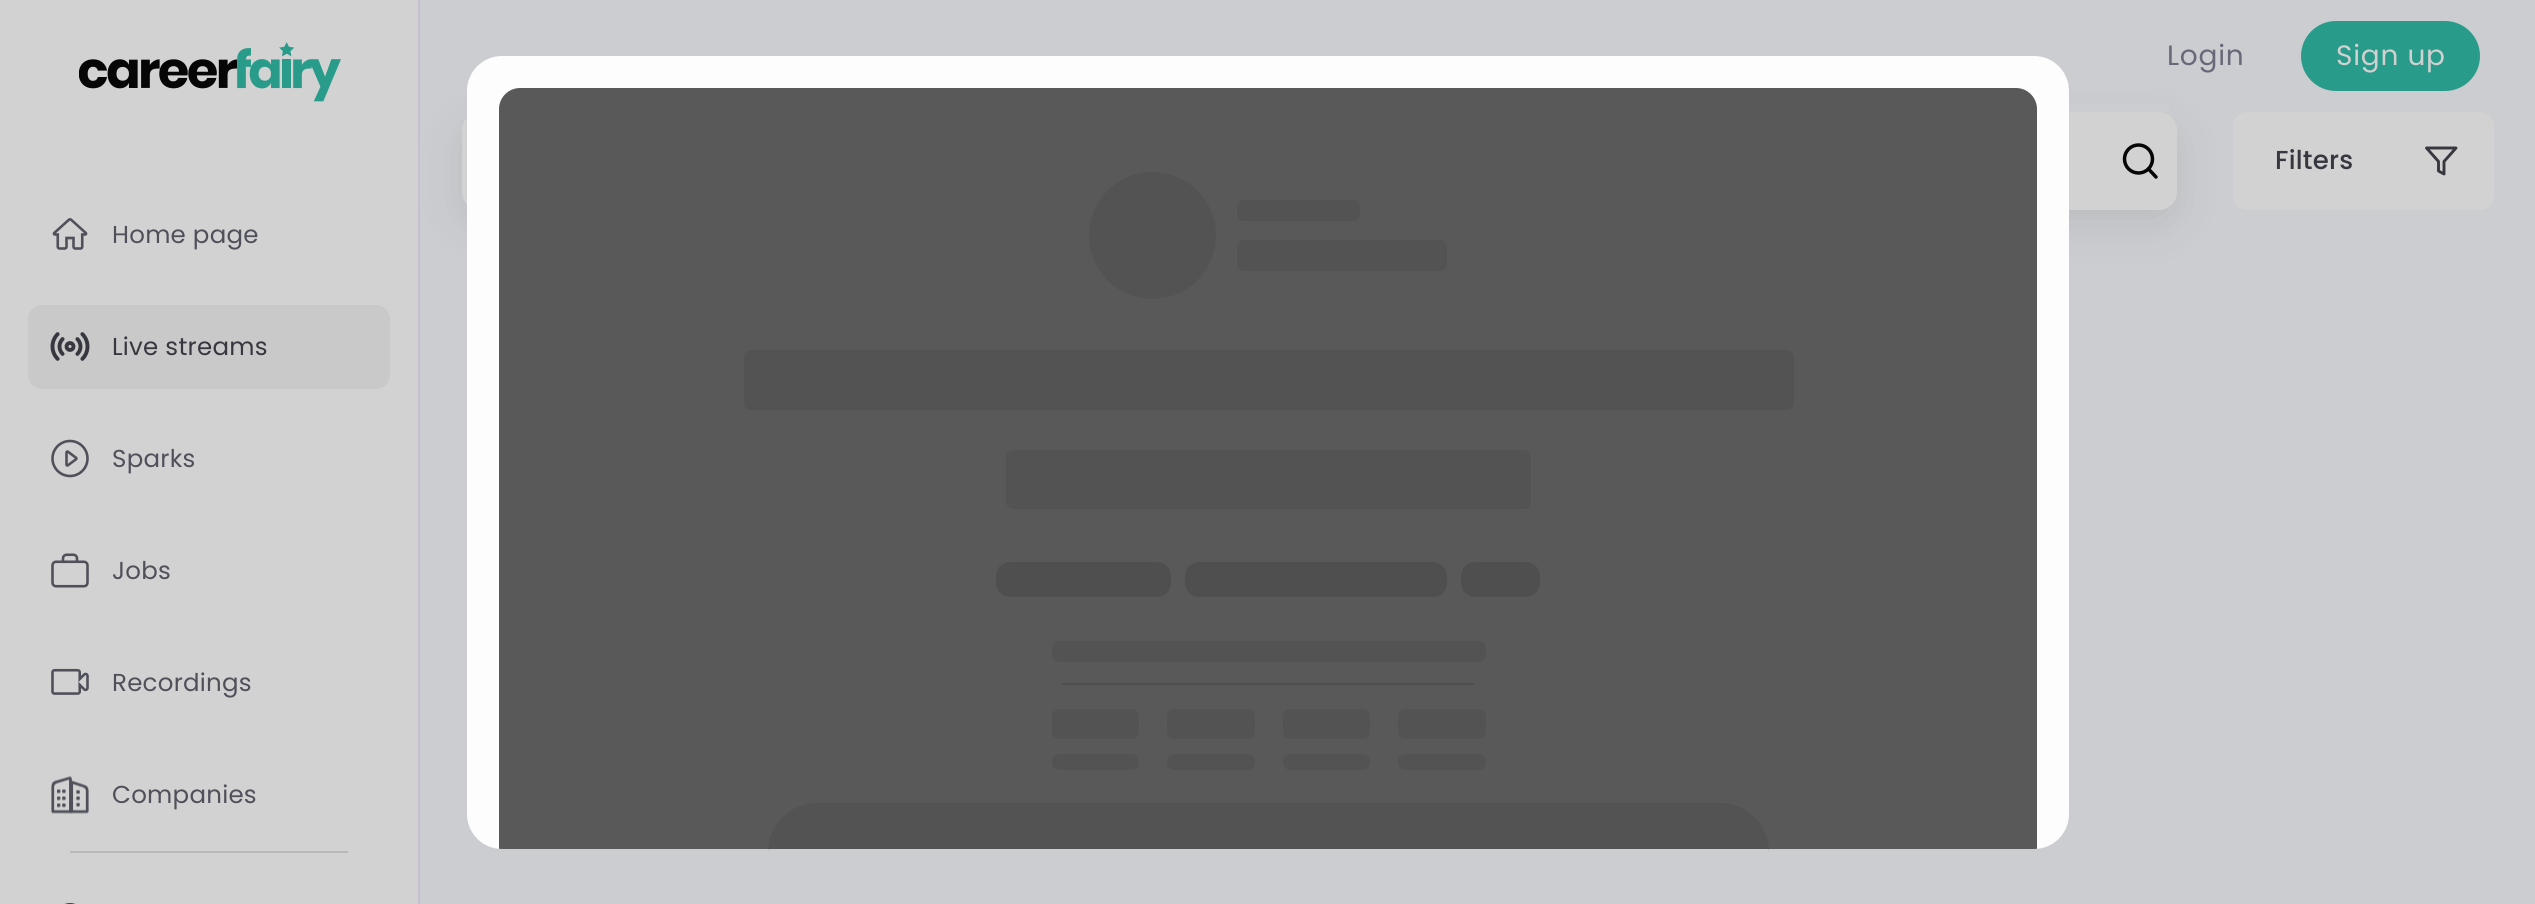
import math
import cairo


def write_spaced(ctx, x, y, s, letter, word):
	ctx.move_to(x, y)
	for ch in s:
		ctx.show_text(ch)
		ctx.rel_move_to(letter + word * (ch == ' '), 0)

def round_path(ctx, x, y, w, h, r):
	ctx.new_sub_path()
	for i, (u, v) in enumerate([(x + w - r, y + h - r), (x + r, y + h - r), (x + r, y + r), (x + w - r, y + r)]):
		ctx.arc(u, v, r, i * math.pi / 2, (i + 1) * math.pi / 2)
	ctx.close_path()

def blur_box(ctx, x, y, w, h, r, blur, alpha):
	ctx.push_group_with_content(cairo.CONTENT_ALPHA)
	ctx.set_operator(cairo.OPERATOR_SOURCE)
	for i in range(15, -16, -2):
		e = blur * i / 6
		if min(w, h) + 2 * e > 0:
			ctx.set_source_rgba(0, 0, 0, alpha * math.erfc((i - 1) / 8.5) / 2)
			round_path(ctx, x - e, y - e, w + 2 * e, h + 2 * e, max(0, min(r + e + blur * .6, min(w, h) / 2 + e)))
			ctx.fill()
	ctx.mask(ctx.pop_group())

def paste(ctx, path, x, y, w, h):
	ctx.save()
	ctx.set_source_surface(cairo.ImageSurface.create_from_png(path), x, y)
	ctx.rectangle(x, y, w, h)
	ctx.fill()
	ctx.restore()

def draw(ctx):
	ctx.set_source_rgb(0.8, 0.804, 0.816)
	ctx.paint()
	ctx.set_source_rgb(0.824, 0.824, 0.824)
	round_path(ctx, 2233, 112, 261, 98, 14)
	ctx.fill()
	ctx.set_source_rgb(0.129, 0.125, 0.125)
	blur_box(ctx, 462, 126, 1715, 98, 18, 22, 0.1)
	ctx.set_source_rgb(0.8, 0.804, 0.816)
	ctx.rectangle(470, 103, 1699, 9)
	ctx.fill()
	ctx.select_font_face('Poppins')
	ctx.set_font_size(28)
	ctx.set_source_rgb(0.408, 0.408, 0.471)
	write_spaced(ctx, 2167, 65, 'Login', 0.75, 0)
	ctx.set_source_rgb(0.157, 0.608, 0.541)
	round_path(ctx, 2301, 21, 179, 70, 35)
	ctx.fill()
	ctx.set_source_rgb(0.82, 0.82, 0.82)
	write_spaced(ctx, 2336, 65, 'Sign up', 0.75, 0)
	ctx.set_source_rgb(0.824, 0.824, 0.824)
	round_path(ctx, 462, 112, 1715, 98, 18)
	ctx.fill()
	ctx.arc(2138.5, 159, 14, 0, 2 * math.pi)
	ctx.set_source_rgb(0.024, 0.024, 0.024)
	ctx.set_line_width(3.5)
	ctx.stroke()
	ctx.new_path()
	ctx.move_to(2156, 177)
	ctx.line_to(2148.5, 169)
	ctx.set_line_cap(cairo.LINE_CAP_ROUND)
	ctx.set_line_join(cairo.LINE_JOIN_ROUND)
	ctx.stroke()
	ctx.select_font_face('Poppins Medium')
	ctx.set_font_size(26)
	ctx.set_source_rgb(0.216, 0.216, 0.247)
	write_spaced(ctx, 2275, 169, 'Filters', 0.25, 0)
	ctx.new_path()
	ctx.move_to(2456, 148)
	ctx.line_to(2426.5, 148)
	ctx.line_to(2438.5, 161.5)
	ctx.line_to(2438.5, 171)
	ctx.line_to(2444, 174)
	ctx.line_to(2444, 161.5)
	ctx.close_path()
	ctx.set_line_width(2.9)
	ctx.stroke()
	ctx.set_source_rgb(0.824, 0.824, 0.824)
	ctx.rectangle(0, 0, 418, 904)
	ctx.fill()
	ctx.set_source_rgb(0.769, 0.749, 0.82)
	ctx.rectangle(418, 0, 2, 904)
	ctx.fill()
	paste(ctx, 'media/1.png', 79, 42, 262, 60)
	paste(ctx, 'media/2.png', 52, 218, 36, 32)
	ctx.select_font_face('Poppins')
	ctx.set_font_size(24.5)
	ctx.set_source_rgb(0.314, 0.314, 0.357)
	write_spaced(ctx, 112, 243, 'Home page', 0.25, 0)
	ctx.set_source_rgb(0.788, 0.788, 0.792)
	round_path(ctx, 28, 305, 362, 84, 14)
	ctx.fill()
	paste(ctx, 'media/3.png', 50, 332, 40, 29)
	ctx.set_source_rgb(0.216, 0.216, 0.247)
	write_spaced(ctx, 112, 355, 'Live streams', 0.25, 0)
	paste(ctx, 'media/4.png', 51, 439, 38, 39)
	ctx.set_source_rgb(0.314, 0.314, 0.357)
	write_spaced(ctx, 112, 467, 'Sparks', 0.25, 0)
	paste(ctx, 'media/5.png', 51, 553, 38, 35)
	write_spaced(ctx, 112, 579, 'Jobs', 0.25, 0)
	paste(ctx, 'media/6.png', 51, 668, 38, 27)
	write_spaced(ctx, 112, 691, 'Recordings', 0.25, 0)
	paste(ctx, 'media/7.png', 51, 776, 38, 38)
	write_spaced(ctx, 112, 803, 'Companies', 0.25, 0)
	ctx.set_source_rgb(0.725, 0.725, 0.725)
	ctx.rectangle(70, 851, 278, 2)
	ctx.fill()
	ctx.arc(70, 922, 17.5, 0, 2 * math.pi)
	ctx.set_source_rgb(0.122, 0.122, 0.133)
	ctx.set_line_width(2.6)
	ctx.set_line_cap(cairo.LINE_CAP_BUTT)
	ctx.set_line_join(cairo.LINE_JOIN_MITER)
	ctx.stroke()
	ctx.set_source_rgb(0.992, 0.992, 0.992)
	round_path(ctx, 467, 56, 1602, 793, 35)
	ctx.fill()
	ctx.save()
	round_path(ctx, 467, 56, 1602, 793, 35)
	ctx.clip()
	ctx.set_source_rgb(0.349, 0.349, 0.349)
	ctx.new_path()
	ctx.move_to(520, 88)
	ctx.line_to(2016, 88)
	ctx.curve_to(2027.5, 88, 2037, 97.5, 2037, 109)
	ctx.line_to(2037, 849)
	ctx.line_to(499, 849)
	ctx.line_to(499, 109)
	ctx.curve_to(499, 97.5, 508.5, 88, 520, 88)
	ctx.close_path()
	ctx.fill()
	ctx.restore()
	ctx.set_source_rgb(0.325, 0.325, 0.325)
	ctx.arc(1152.5, 235.5, 63.5, 0, 2 * math.pi)
	ctx.fill()
	round_path(ctx, 1237, 200, 123, 21, 7)
	ctx.fill()
	round_path(ctx, 1237, 240, 210, 31, 7)
	ctx.fill()
	round_path(ctx, 744, 350, 1050, 60, 7)
	ctx.fill()
	round_path(ctx, 1006, 450, 525, 59, 7)
	ctx.fill()
	ctx.set_source_rgb(0.31, 0.31, 0.31)
	round_path(ctx, 996, 562, 175, 35, 14)
	ctx.fill()
	round_path(ctx, 1185, 562, 262, 35, 14)
	ctx.fill()
	round_path(ctx, 1461, 562, 79, 35, 14)
	ctx.fill()
	ctx.set_source_rgb(0.325, 0.325, 0.325)
	round_path(ctx, 1052, 641, 434, 21, 7)
	ctx.fill()
	ctx.set_source_rgb(0.31, 0.31, 0.31)
	ctx.rectangle(1062, 683, 412, 2)
	ctx.fill()
	ctx.set_source_rgb(0.325, 0.325, 0.325)
	round_path(ctx, 1052, 709, 87, 30, 7)
	ctx.fill()
	round_path(ctx, 1052, 754, 87, 16, 7)
	ctx.fill()
	round_path(ctx, 1167, 709, 88, 30, 7)
	ctx.fill()
	round_path(ctx, 1167, 754, 88, 16, 7)
	ctx.fill()
	round_path(ctx, 1283, 709, 87, 30, 7)
	ctx.fill()
	round_path(ctx, 1283, 754, 87, 16, 7)
	ctx.fill()
	round_path(ctx, 1398, 709, 88, 30, 7)
	ctx.fill()
	round_path(ctx, 1398, 754, 88, 16, 7)
	ctx.fill()
	ctx.new_path()
	ctx.move_to(817, 803)
	ctx.line_to(1720, 803)
	ctx.curve_to(1747, 803, 1769, 825, 1769, 852)
	ctx.line_to(1769, 849)
	ctx.line_to(768, 849)
	ctx.line_to(768, 852)
	ctx.curve_to(768, 825, 790, 803, 817, 803)
	ctx.close_path()
	ctx.fill()


surface = cairo.ImageSurface(cairo.FORMAT_RGB24, 2535, 904)
ctx = cairo.Context(surface)
options = cairo.FontOptions()
options.set_hint_metrics(cairo.HINT_METRICS_OFF)
options.set_hint_style(cairo.HINT_STYLE_NONE)
ctx.set_font_options(options)
ctx.set_miter_limit(4)
draw(ctx)
surface.write_to_png('image.png')
